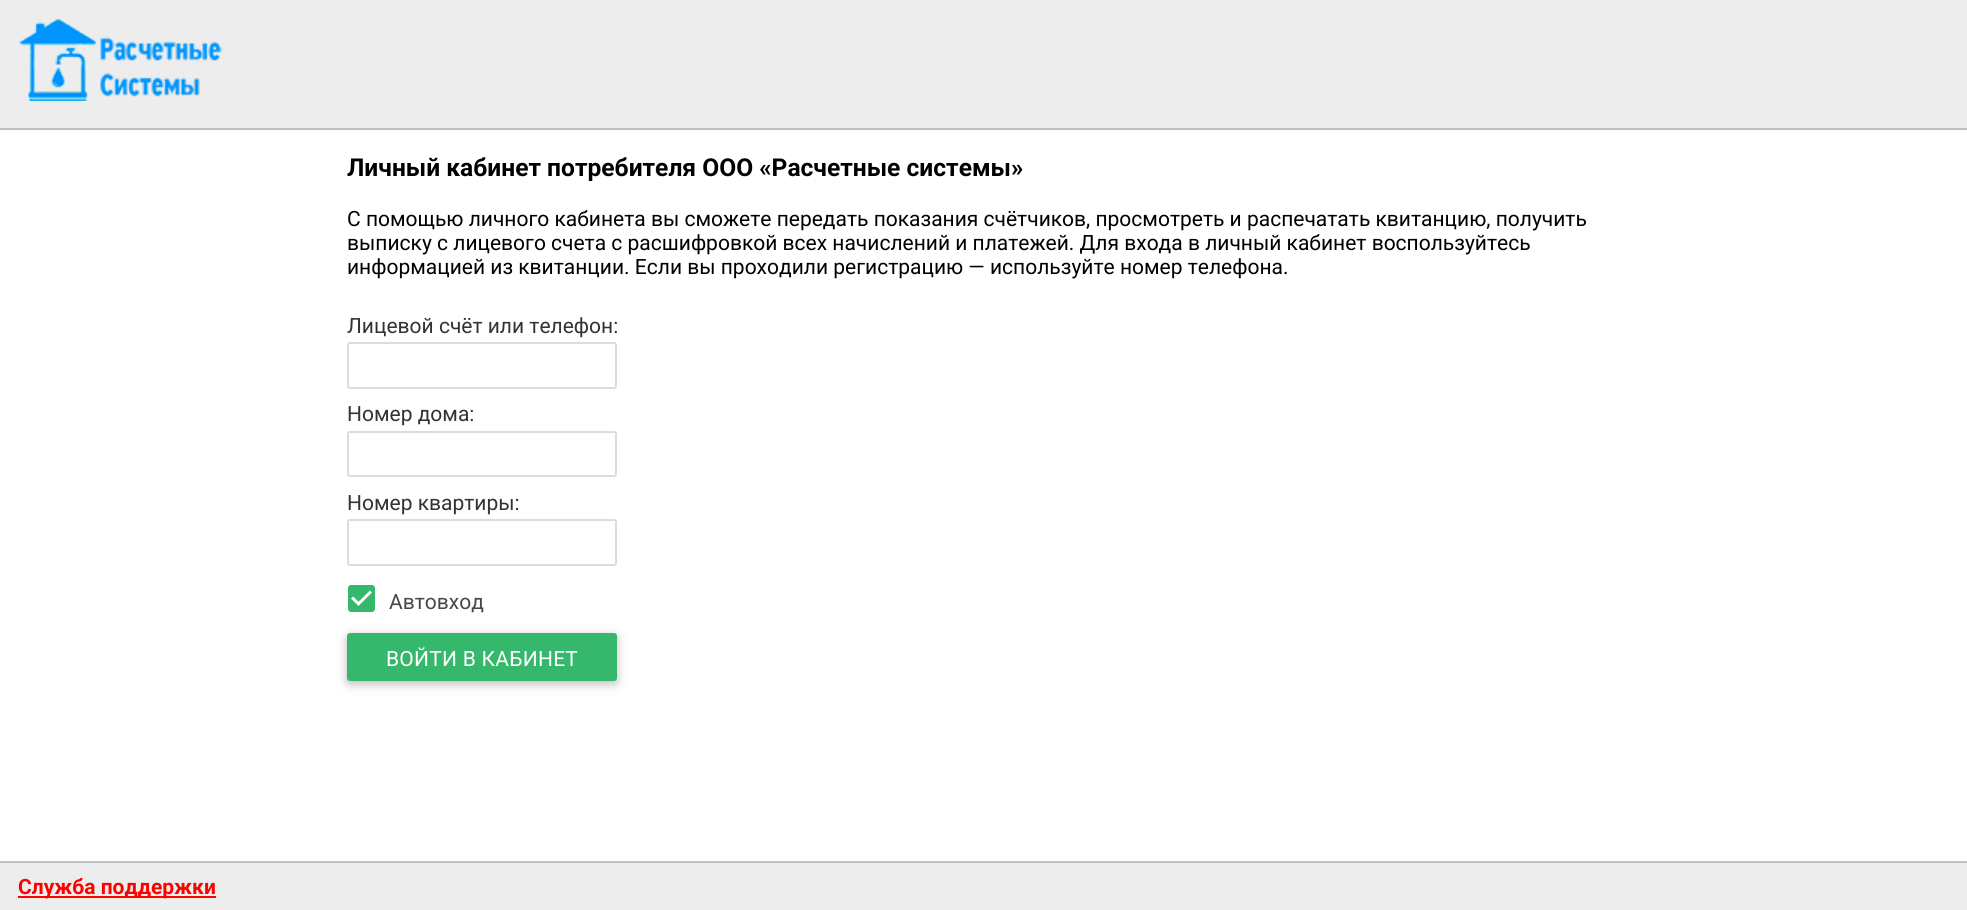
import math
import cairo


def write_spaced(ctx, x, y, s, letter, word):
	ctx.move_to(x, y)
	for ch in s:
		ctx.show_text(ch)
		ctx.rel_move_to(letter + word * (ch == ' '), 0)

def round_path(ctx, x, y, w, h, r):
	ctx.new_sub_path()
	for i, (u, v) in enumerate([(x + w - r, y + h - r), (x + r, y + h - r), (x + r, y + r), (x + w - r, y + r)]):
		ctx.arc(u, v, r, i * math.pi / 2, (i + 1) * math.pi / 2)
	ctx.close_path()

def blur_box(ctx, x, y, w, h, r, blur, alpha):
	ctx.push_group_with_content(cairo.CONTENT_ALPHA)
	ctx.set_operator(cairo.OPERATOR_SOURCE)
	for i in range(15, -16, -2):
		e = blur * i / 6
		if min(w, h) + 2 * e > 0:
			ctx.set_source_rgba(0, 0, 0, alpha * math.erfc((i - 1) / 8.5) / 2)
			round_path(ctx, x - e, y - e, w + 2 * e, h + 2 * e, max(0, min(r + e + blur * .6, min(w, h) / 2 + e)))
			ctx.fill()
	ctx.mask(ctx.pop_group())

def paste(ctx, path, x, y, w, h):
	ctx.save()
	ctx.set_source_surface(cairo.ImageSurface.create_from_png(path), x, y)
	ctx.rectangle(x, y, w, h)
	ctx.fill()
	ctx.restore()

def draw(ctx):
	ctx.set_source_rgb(1, 1, 1)
	ctx.paint()
	ctx.set_source_rgb(0.929, 0.929, 0.929)
	ctx.rectangle(0, 0, 1967, 128)
	ctx.fill()
	ctx.set_source_rgb(0.753, 0.753, 0.753)
	ctx.rectangle(0, 128, 1967, 2)
	ctx.fill()
	paste(ctx, 'media/1.png', 19, 19, 204, 82)
	ctx.select_font_face('Roboto', cairo.FONT_SLANT_NORMAL, cairo.FONT_WEIGHT_BOLD)
	ctx.set_font_size(24.6)
	ctx.set_source_rgb(0, 0, 0)
	ctx.move_to(347, 176)
	ctx.show_text('Личный кабинет потребителя ООО «Расчетные системы»')
	ctx.select_font_face('Roboto')
	ctx.set_font_size(21)
	for x, y, s in [
		(347, 226, 'С помощью личного кабинета вы сможете передать показания счётчиков, просмотреть и распечатать квитанцию, получить'),
		(347, 250, 'выписку с лицевого счета с расшифровкой всех начислений и платежей. Для входа в личный кабинет воспользуйтесь'),
		(347, 274, 'информацией из квитанции. Если вы проходили регистрацию — используйте номер телефона.'),
	]:
		ctx.move_to(x, y)
		ctx.show_text(s)
	ctx.set_source_rgb(0.2, 0.2, 0.2)
	ctx.move_to(347, 333)
	ctx.show_text('Лицевой счёт или телефон:')
	round_path(ctx, 348, 343, 268, 45, 2)
	ctx.set_source_rgb(0.863, 0.863, 0.863)
	ctx.stroke()
	ctx.set_source_rgb(0.2, 0.2, 0.2)
	ctx.move_to(347, 421)
	ctx.show_text('Номер дома:')
	round_path(ctx, 348, 432, 268, 44, 2)
	ctx.set_source_rgb(0.863, 0.863, 0.863)
	ctx.stroke()
	ctx.set_source_rgb(0.2, 0.2, 0.2)
	ctx.move_to(347, 510)
	ctx.show_text('Номер квартиры:')
	round_path(ctx, 348, 520, 268, 45, 2)
	ctx.set_source_rgb(0.863, 0.863, 0.863)
	ctx.stroke()
	paste(ctx, 'media/2.png', 348, 585, 27, 27)
	ctx.set_source_rgb(0.282, 0.282, 0.282)
	ctx.move_to(389, 609)
	ctx.show_text('Автовход')
	ctx.set_source_rgb(0, 0, 0)
	blur_box(ctx, 347, 636, 270, 48, 3, 7.5, 0.12)
	blur_box(ctx, 347, 636, 270, 48, 3, 4, 0.16)
	ctx.set_source_rgb(0.208, 0.722, 0.42)
	round_path(ctx, 347, 633, 270, 48, 3)
	ctx.fill()
	ctx.set_source_rgb(1, 1, 1)
	write_spaced(ctx, 386, 666, 'ВОЙТИ В КАБИНЕТ', 0.25, 0)
	ctx.set_source_rgb(0.929, 0.929, 0.929)
	ctx.rectangle(0, 863, 1967, 47)
	ctx.fill()
	ctx.set_source_rgb(0.753, 0.753, 0.753)
	ctx.rectangle(0, 861, 1967, 2)
	ctx.fill()
	ctx.set_source_rgb(1, 0, 0)
	ctx.rectangle(18, 896, 198, 2)
	ctx.fill()
	ctx.select_font_face('Roboto', cairo.FONT_SLANT_NORMAL, cairo.FONT_WEIGHT_BOLD)
	ctx.move_to(18, 894)
	ctx.show_text('Служба поддержки')


surface = cairo.ImageSurface(cairo.FORMAT_RGB24, 1967, 910)
ctx = cairo.Context(surface)
options = cairo.FontOptions()
options.set_hint_metrics(cairo.HINT_METRICS_OFF)
options.set_hint_style(cairo.HINT_STYLE_NONE)
ctx.set_font_options(options)
ctx.set_miter_limit(4)
draw(ctx)
surface.write_to_png('image.png')
